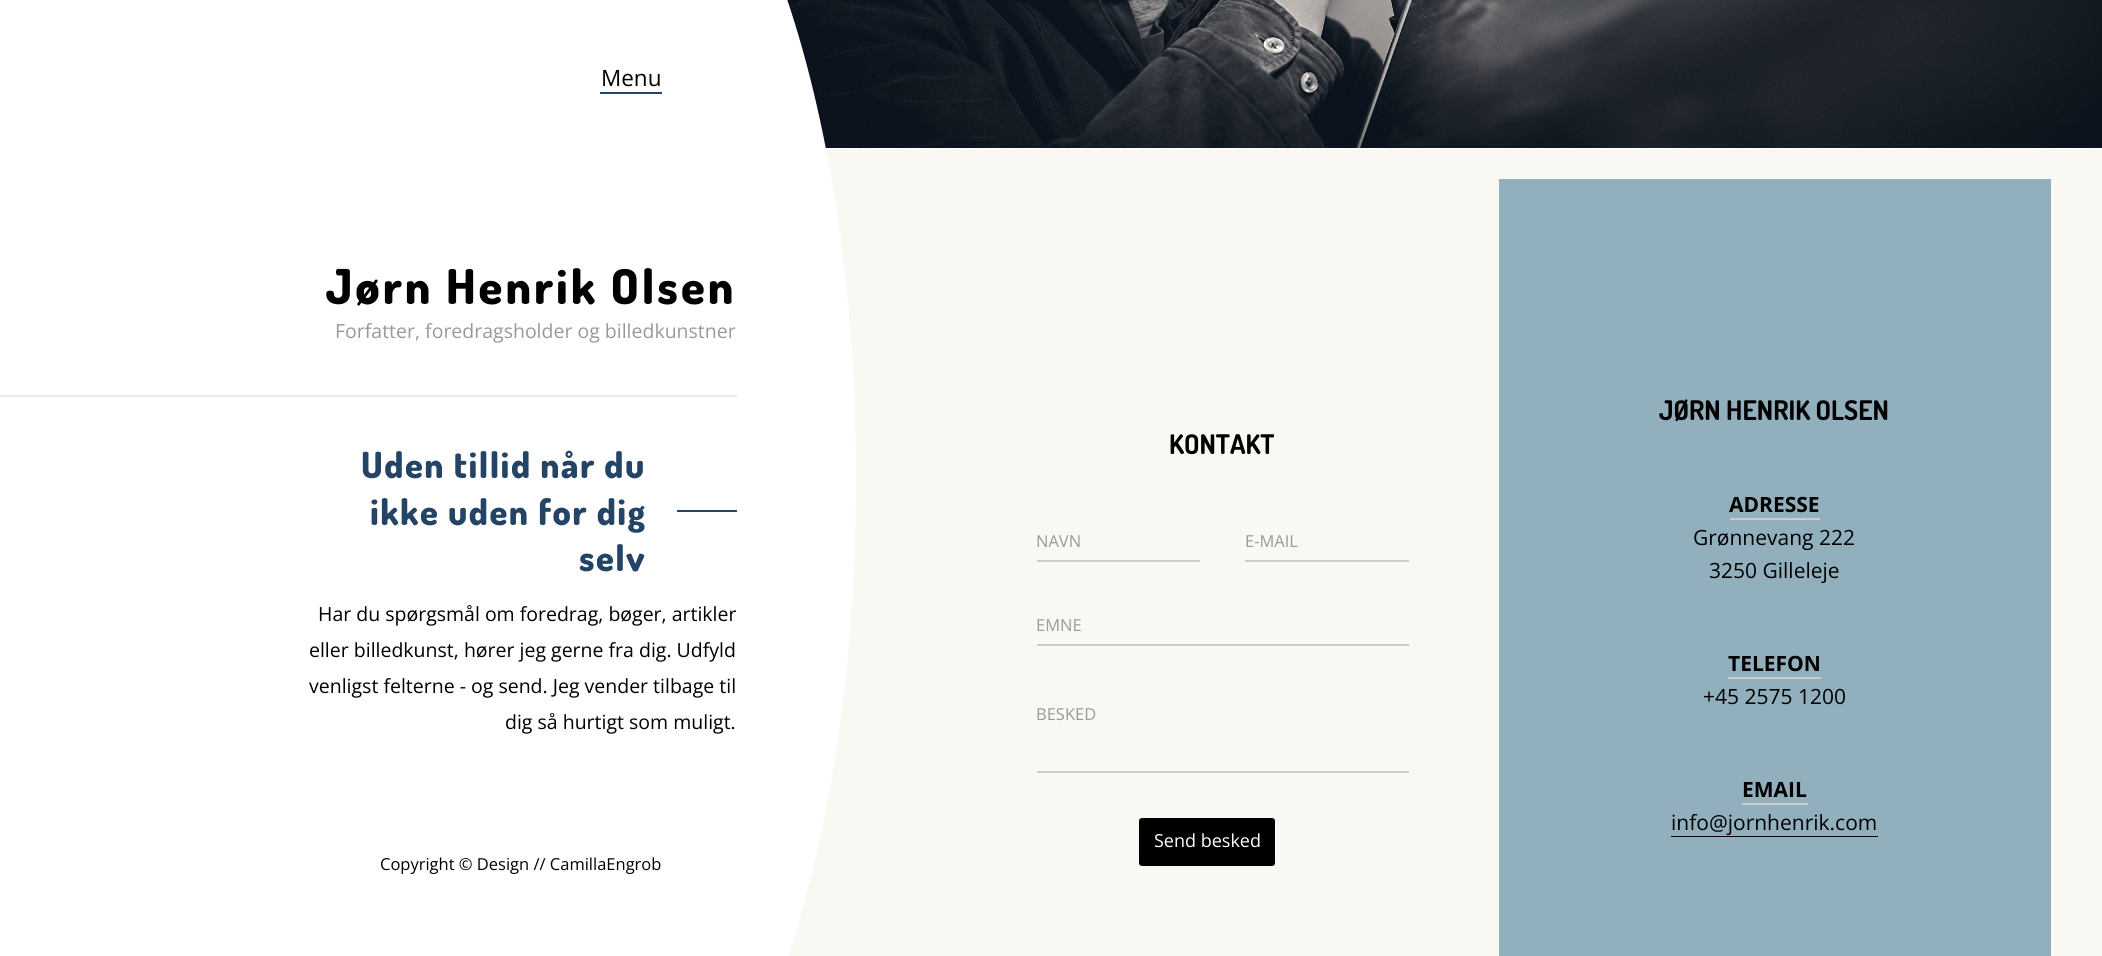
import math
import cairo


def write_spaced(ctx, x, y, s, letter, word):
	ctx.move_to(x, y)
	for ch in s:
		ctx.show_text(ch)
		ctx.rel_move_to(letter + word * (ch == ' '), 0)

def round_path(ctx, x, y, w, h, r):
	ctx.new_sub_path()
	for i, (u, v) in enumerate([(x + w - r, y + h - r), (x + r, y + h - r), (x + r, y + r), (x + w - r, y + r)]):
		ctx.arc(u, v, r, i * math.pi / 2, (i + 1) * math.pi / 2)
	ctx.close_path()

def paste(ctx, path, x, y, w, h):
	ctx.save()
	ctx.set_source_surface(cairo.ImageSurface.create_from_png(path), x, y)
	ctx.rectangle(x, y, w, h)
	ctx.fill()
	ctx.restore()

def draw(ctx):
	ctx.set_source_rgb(1, 1, 1)
	ctx.paint()
	paste(ctx, 'media/1.png', 787, 0, 1315, 148)
	ctx.set_source_rgb(0.973, 0.969, 0.949)
	ctx.rectangle(788, 149, 1314, 807)
	ctx.fill()
	ctx.set_source_rgb(1, 1, 1)
	ctx.new_path()
	ctx.move_to(226, -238)
	ctx.line_to(587, -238)
	ctx.curve_to(736, -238, 856, 83, 856, 479)
	ctx.curve_to(856, 876, 736, 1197, 587, 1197)
	ctx.line_to(226, 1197)
	ctx.curve_to(77, 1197, -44, 876, -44, 479)
	ctx.curve_to(-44, 83, 77, -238, 226, -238)
	ctx.close_path()
	ctx.fill()
	ctx.set_source_rgb(0.141, 0.267, 0.396)
	ctx.rectangle(600, 92, 62, 2)
	ctx.fill()
	ctx.select_font_face('Open Sans')
	ctx.set_font_size(22.5)
	ctx.set_source_rgb(0, 0, 0)
	ctx.move_to(601, 86)
	ctx.show_text('Menu')
	ctx.set_source_rgb(0.918, 0.918, 0.918)
	ctx.rectangle(0, 395, 737, 2)
	ctx.fill()
	ctx.select_font_face('Dosis ExtraBold')
	ctx.set_font_size(48)
	ctx.set_source_rgb(0, 0, 0)
	write_spaced(ctx, 326, 304, 'Jørn Henrik Olsen', 3, 0)
	ctx.select_font_face('Open Sans')
	ctx.set_font_size(19.5)
	ctx.set_source_rgb(0.6, 0.6, 0.6)
	ctx.move_to(335, 338)
	ctx.show_text('Forfatter, foredragsholder og billedkunstner')
	ctx.select_font_face('Dosis ExtraBold')
	ctx.set_font_size(36)
	ctx.set_source_rgb(0.141, 0.267, 0.396)
	write_spaced(ctx, 361, 478, 'Uden tillid når du', 1.5, 0)
	write_spaced(ctx, 370, 525, 'ikke uden for dig', 1.5, 0)
	ctx.rectangle(677, 510, 60, 2)
	ctx.fill()
	write_spaced(ctx, 579, 571, 'selv', 1.5, 0)
	ctx.select_font_face('Open Sans')
	ctx.set_font_size(19.5)
	ctx.set_source_rgb(0, 0, 0)
	for x, y, s in [
		(318, 621, 'Har du spørgsmål om foredrag, bøger, artikler'),
		(309, 657, 'eller billedkunst, hører jeg gerne fra dig. Udfyld'),
		(309, 693, 'venligst felterne - og send. Jeg vender tilbage til'),
		(505, 729, 'dig så hurtigt som muligt.'),
	]:
		ctx.move_to(x, y)
		ctx.show_text(s)
	ctx.set_font_size(16.5)
	ctx.move_to(380, 870)
	ctx.show_text('Copyright © Design // CamillaEngrob')
	ctx.select_font_face('Dosis', cairo.FONT_SLANT_NORMAL, cairo.FONT_WEIGHT_BOLD)
	ctx.set_font_size(27)
	ctx.move_to(1169, 454)
	ctx.show_text('KONTAKT')
	ctx.set_source_rgb(0.8, 0.8, 0.8)
	ctx.rectangle(1037, 560, 163, 2)
	ctx.fill()
	ctx.select_font_face('Open Sans')
	ctx.set_font_size(16.5)
	ctx.set_source_rgb(0.6, 0.6, 0.6)
	ctx.move_to(1036, 547)
	ctx.show_text('NAVN')
	ctx.set_source_rgb(0.8, 0.8, 0.8)
	ctx.rectangle(1245, 560, 164, 2)
	ctx.fill()
	ctx.set_source_rgb(0.6, 0.6, 0.6)
	ctx.move_to(1245, 547)
	ctx.show_text('E-MAIL')
	ctx.set_source_rgb(0.8, 0.8, 0.8)
	ctx.rectangle(1037, 644, 372, 2)
	ctx.fill()
	ctx.set_source_rgb(0.6, 0.6, 0.6)
	ctx.move_to(1036, 631)
	ctx.show_text('EMNE')
	ctx.set_source_rgb(0.8, 0.8, 0.8)
	ctx.rectangle(1037, 771, 372, 2)
	ctx.fill()
	ctx.set_source_rgb(0.6, 0.6, 0.6)
	ctx.move_to(1036, 720)
	ctx.show_text('BESKED')
	ctx.set_source_rgb(0, 0, 0)
	round_path(ctx, 1139, 818, 136, 48, 3)
	ctx.fill()
	ctx.set_font_size(18)
	ctx.set_source_rgb(1, 1, 1)
	ctx.move_to(1154, 847)
	ctx.show_text('Send besked')
	ctx.set_source_rgb(0.573, 0.686, 0.741)
	ctx.rectangle(1499, 179, 552, 777)
	ctx.fill()
	ctx.select_font_face('Dosis', cairo.FONT_SLANT_NORMAL, cairo.FONT_WEIGHT_BOLD)
	ctx.set_font_size(27)
	ctx.set_source_rgb(0, 0, 0)
	ctx.move_to(1659, 420)
	ctx.show_text('JØRN HENRIK OLSEN')
	ctx.select_font_face('Open Sans', cairo.FONT_SLANT_NORMAL, cairo.FONT_WEIGHT_BOLD)
	ctx.set_font_size(21)
	ctx.move_to(1729, 512)
	ctx.show_text('ADRESSE')
	ctx.set_source_rgb(0.8, 0.8, 0.8)
	ctx.rectangle(1730, 518, 90, 2)
	ctx.fill()
	ctx.select_font_face('Open Sans')
	ctx.set_source_rgb(0, 0, 0)
	ctx.move_to(1693, 545)
	ctx.show_text('Grønnevang 222')
	ctx.move_to(1709, 578)
	ctx.show_text('3250 Gilleleje')
	ctx.select_font_face('Open Sans', cairo.FONT_SLANT_NORMAL, cairo.FONT_WEIGHT_BOLD)
	ctx.move_to(1728, 671)
	ctx.show_text('TELEFON')
	ctx.set_source_rgb(0.8, 0.8, 0.8)
	ctx.rectangle(1728, 677, 93, 2)
	ctx.fill()
	ctx.select_font_face('Open Sans')
	ctx.set_source_rgb(0, 0, 0)
	ctx.move_to(1703, 704)
	ctx.show_text('+45 2575 1200')
	ctx.select_font_face('Open Sans', cairo.FONT_SLANT_NORMAL, cairo.FONT_WEIGHT_BOLD)
	ctx.move_to(1742, 797)
	ctx.show_text('EMAIL')
	ctx.set_source_rgb(0.8, 0.8, 0.8)
	ctx.rectangle(1742, 803, 66, 2)
	ctx.fill()
	ctx.select_font_face('Open Sans')
	ctx.set_source_rgb(0, 0, 0)
	ctx.move_to(1671, 830)
	ctx.show_text('info@jornhenrik.com')
	ctx.rectangle(1671, 836, 207, 1)
	ctx.fill()


surface = cairo.ImageSurface(cairo.FORMAT_RGB24, 2102, 956)
ctx = cairo.Context(surface)
options = cairo.FontOptions()
options.set_hint_metrics(cairo.HINT_METRICS_OFF)
options.set_hint_style(cairo.HINT_STYLE_NONE)
ctx.set_font_options(options)
ctx.set_miter_limit(4)
draw(ctx)
surface.write_to_png('image.png')
